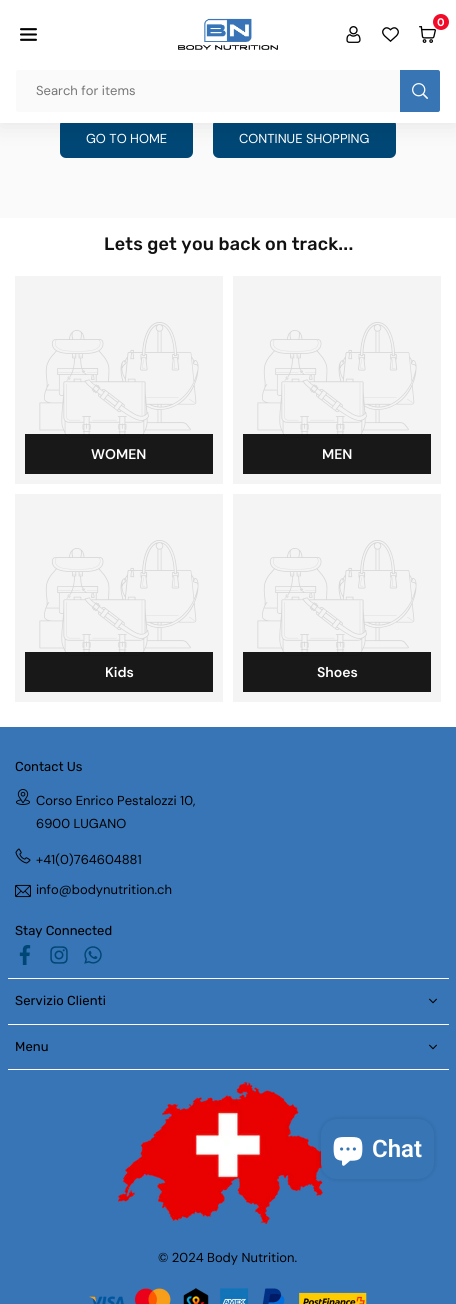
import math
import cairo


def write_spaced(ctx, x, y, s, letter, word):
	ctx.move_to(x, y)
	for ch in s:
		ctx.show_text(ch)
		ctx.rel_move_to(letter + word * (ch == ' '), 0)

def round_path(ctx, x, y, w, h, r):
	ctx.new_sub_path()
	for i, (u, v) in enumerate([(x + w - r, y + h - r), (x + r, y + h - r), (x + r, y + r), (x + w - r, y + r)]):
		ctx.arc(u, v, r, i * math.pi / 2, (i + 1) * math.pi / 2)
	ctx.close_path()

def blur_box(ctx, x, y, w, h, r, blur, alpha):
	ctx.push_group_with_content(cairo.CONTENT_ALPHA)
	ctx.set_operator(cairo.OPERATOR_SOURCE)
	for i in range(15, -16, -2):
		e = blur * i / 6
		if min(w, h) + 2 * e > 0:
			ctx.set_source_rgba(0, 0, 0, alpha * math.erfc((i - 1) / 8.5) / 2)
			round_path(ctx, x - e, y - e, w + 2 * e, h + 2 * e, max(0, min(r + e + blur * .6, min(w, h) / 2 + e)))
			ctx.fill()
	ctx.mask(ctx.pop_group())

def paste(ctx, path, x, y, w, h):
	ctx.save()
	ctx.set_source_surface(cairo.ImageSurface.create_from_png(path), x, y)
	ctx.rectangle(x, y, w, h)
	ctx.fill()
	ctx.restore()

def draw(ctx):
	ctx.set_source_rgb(1, 1, 1)
	ctx.paint()
	ctx.set_source_rgb(0.98, 0.98, 0.98)
	ctx.rectangle(0, 123, 456, 95)
	ctx.fill()
	ctx.set_source_rgb(0, 0.278, 0.459)
	round_path(ctx, 60, 119, 133, 39, 6)
	ctx.fill()
	round_path(ctx, 213, 119, 183, 39, 6)
	ctx.fill()
	ctx.set_source_rgb(0, 0, 0)
	blur_box(ctx, 0, 0, 456, 123, 0, 12.5, 0.1)
	ctx.set_source_rgb(1, 1, 1)
	ctx.rectangle(0, 0, 456, 123)
	ctx.fill()
	paste(ctx, 'media/1.png', 178, 18, 100, 32)
	paste(ctx, 'media/2.png', 419, 26, 17, 17)
	ctx.set_source_rgb(0.945, 0.043, 0.157)
	ctx.arc(441, 22, 8, 0, 2 * math.pi)
	ctx.fill()
	ctx.select_font_face('DM Sans', cairo.FONT_SLANT_NORMAL, cairo.FONT_WEIGHT_BOLD)
	ctx.set_font_size(11)
	ctx.set_source_rgb(1, 1, 1)
	ctx.move_to(437, 26)
	ctx.show_text('0')
	paste(ctx, 'media/3.png', 346, 26, 15, 17)
	paste(ctx, 'media/4.png', 382, 27, 17, 15)
	paste(ctx, 'media/5.png', 20, 28, 17, 13)
	ctx.set_source_rgb(0.98, 0.98, 0.98)
	ctx.new_path()
	ctx.move_to(18, 70)
	ctx.line_to(400, 70)
	ctx.line_to(400, 112)
	ctx.line_to(18, 112)
	ctx.curve_to(17, 112, 16, 111, 16, 110)
	ctx.line_to(16, 72)
	ctx.curve_to(16, 71, 17, 70, 18, 70)
	ctx.close_path()
	ctx.fill()
	ctx.select_font_face('DM Sans')
	ctx.set_font_size(13)
	ctx.set_source_rgb(0.459, 0.459, 0.459)
	ctx.move_to(36, 95)
	ctx.show_text('Search for items')
	ctx.set_source_rgb(0.216, 0.459, 0.71)
	ctx.new_path()
	ctx.move_to(400, 70)
	ctx.line_to(438, 70)
	ctx.curve_to(439, 70, 440, 71, 440, 72)
	ctx.line_to(440, 110)
	ctx.curve_to(440, 111, 439, 112, 438, 112)
	ctx.line_to(400, 112)
	ctx.close_path()
	ctx.fill()
	paste(ctx, 'media/6.png', 412, 83, 16, 16)
	ctx.set_source_rgb(1, 1, 1)
	ctx.move_to(86, 143)
	ctx.show_text('GO TO HOME')
	ctx.move_to(239, 143)
	ctx.show_text('CONTINUE SHOPPING')
	ctx.select_font_face('Rubik Medium')
	ctx.set_font_size(18)
	ctx.set_source_rgb(0.067, 0.067, 0.067)
	write_spaced(ctx, 104, 250, 'Lets get you back on track...', 0.2, 0)
	ctx.set_source_rgb(0.957, 0.957, 0.957)
	ctx.rectangle(15, 276, 208, 208)
	ctx.fill()
	paste(ctx, 'media/7.png', 39, 322, 160, 116)
	ctx.set_source_rgba(0, 0, 0, 0.9)
	ctx.rectangle(25, 434, 188, 40)
	ctx.fill()
	ctx.select_font_face('DM Sans SemiBold')
	ctx.set_font_size(14)
	ctx.set_source_rgb(1, 1, 1)
	ctx.move_to(91, 459)
	ctx.show_text('WOMEN')
	ctx.set_source_rgb(0.957, 0.957, 0.957)
	ctx.rectangle(233, 276, 208, 208)
	ctx.fill()
	paste(ctx, 'media/7.png', 257, 322, 160, 116)
	ctx.set_source_rgba(0, 0, 0, 0.9)
	ctx.rectangle(243, 434, 188, 40)
	ctx.fill()
	ctx.set_source_rgb(1, 1, 1)
	ctx.move_to(322, 459)
	ctx.show_text('MEN')
	ctx.set_source_rgb(0.957, 0.957, 0.957)
	ctx.rectangle(15, 494, 208, 208)
	ctx.fill()
	paste(ctx, 'media/7.png', 39, 540, 160, 116)
	ctx.set_source_rgba(0, 0, 0, 0.9)
	ctx.rectangle(25, 652, 188, 40)
	ctx.fill()
	ctx.set_source_rgb(1, 1, 1)
	ctx.move_to(105, 677)
	ctx.show_text('Kids')
	ctx.set_source_rgb(0.957, 0.957, 0.957)
	ctx.rectangle(233, 494, 208, 208)
	ctx.fill()
	paste(ctx, 'media/7.png', 257, 540, 160, 116)
	ctx.set_source_rgba(0, 0, 0, 0.9)
	ctx.rectangle(243, 652, 188, 40)
	ctx.fill()
	ctx.set_source_rgb(1, 1, 1)
	ctx.move_to(317, 677)
	ctx.show_text('Shoes')
	ctx.set_source_rgb(0.216, 0.459, 0.714)
	ctx.rectangle(0, 727, 456, 577)
	ctx.fill()
	ctx.select_font_face('Rubik')
	ctx.set_font_size(13)
	ctx.set_source_rgb(0, 0, 0)
	ctx.move_to(15, 771)
	ctx.show_text('Contact Us')
	paste(ctx, 'media/8.png', 16, 789, 14, 16)
	ctx.select_font_face('DM Sans')
	ctx.move_to(36, 805)
	ctx.show_text('Corso Enrico Pestalozzi 10,')
	ctx.move_to(36, 828)
	ctx.show_text('6900 LUGANO')
	paste(ctx, 'media/9.png', 15, 848, 16, 16)
	ctx.move_to(36, 864)
	ctx.show_text('+41(0)764604881')
	paste(ctx, 'media/10.png', 15, 884, 16, 14)
	ctx.move_to(36, 894)
	ctx.show_text('info@bodynutrition.ch')
	ctx.select_font_face('Rubik')
	ctx.move_to(15, 935)
	ctx.show_text('Stay Connected')
	paste(ctx, 'media/11.png', 19, 945, 12, 20)
	paste(ctx, 'media/12.png', 50, 946, 18, 18)
	paste(ctx, 'media/13.png', 84, 946, 18, 18)
	ctx.set_source_rgb(1, 1, 1)
	ctx.rectangle(8, 978, 441, 1)
	ctx.fill()
	ctx.set_source_rgb(0, 0, 0)
	write_spaced(ctx, 15, 1005, 'Servizio Clienti', 0.1, 0)
	paste(ctx, 'media/14.png', 429, 998, 8, 6)
	ctx.set_source_rgb(1, 1, 1)
	ctx.rectangle(8, 1024, 441, 1)
	ctx.fill()
	ctx.set_source_rgb(0, 0, 0)
	write_spaced(ctx, 15, 1051, 'Menu', 0.1, 0)
	paste(ctx, 'media/14.png', 429, 1044, 8, 6)
	ctx.set_source_rgb(1, 1, 1)
	ctx.rectangle(8, 1069, 441, 1)
	ctx.fill()
	paste(ctx, 'media/15.png', 118, 1082, 205, 142)
	ctx.select_font_face('DM Sans')
	ctx.set_source_rgb(0, 0, 0)
	ctx.move_to(158, 1262)
	ctx.show_text('© 2024 Body Nutrition.')
	paste(ctx, 'media/16.png', 89, 1288, 278, 16)
	ctx.set_source_rgb(0, 0, 0)
	blur_box(ctx, 321, 1119, 113, 60, 16, 2.5, 0.15)
	ctx.set_source_rgb(0.216, 0.459, 0.71)
	round_path(ctx, 321, 1119, 113, 60, 16)
	ctx.fill()
	paste(ctx, 'media/17.png', 333, 1137, 30, 29)
	ctx.select_font_face('Roboto SemiBold')
	ctx.set_font_size(24)
	ctx.set_source_rgb(1, 1, 1)
	ctx.move_to(372, 1157)
	ctx.show_text('Chat')


surface = cairo.ImageSurface(cairo.FORMAT_RGB24, 456, 1304)
ctx = cairo.Context(surface)
options = cairo.FontOptions()
options.set_hint_metrics(cairo.HINT_METRICS_OFF)
options.set_hint_style(cairo.HINT_STYLE_NONE)
ctx.set_font_options(options)
ctx.set_miter_limit(4)
draw(ctx)
surface.write_to_png('image.png')
